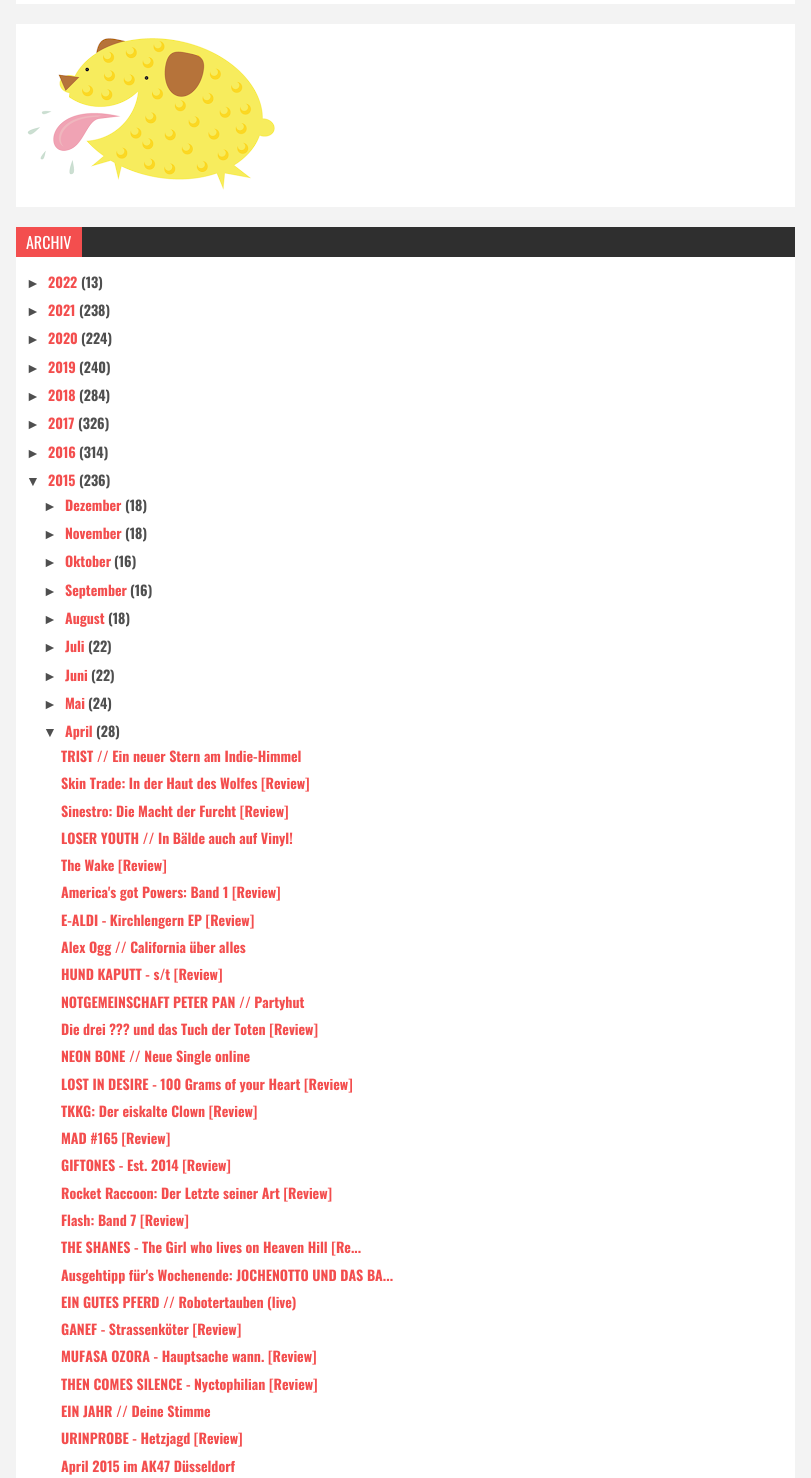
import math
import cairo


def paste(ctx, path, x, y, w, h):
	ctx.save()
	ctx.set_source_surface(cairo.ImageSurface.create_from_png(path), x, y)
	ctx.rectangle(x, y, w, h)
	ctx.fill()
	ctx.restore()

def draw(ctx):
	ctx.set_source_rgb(0.953, 0.953, 0.953)
	ctx.paint()
	ctx.set_source_rgb(1, 1, 1)
	ctx.rectangle(16, 0, 779, 4)
	ctx.fill()
	ctx.rectangle(16, 24, 779, 183)
	ctx.fill()
	paste(ctx, 'media/1.png', 27, 38, 248, 152)
	ctx.set_source_rgb(0.184, 0.184, 0.184)
	ctx.rectangle(82, 227, 713, 30)
	ctx.fill()
	ctx.set_source_rgb(0.953, 0.306, 0.306)
	ctx.rectangle(16, 227, 66, 30)
	ctx.fill()
	ctx.select_font_face('Oswald')
	ctx.set_font_size(16)
	ctx.set_source_rgb(1, 1, 1)
	ctx.move_to(26, 249)
	ctx.show_text('ARCHIV')
	ctx.rectangle(16, 257, 779, 1221)
	ctx.fill()
	ctx.select_font_face('Liberation Sans', cairo.FONT_SLANT_NORMAL, cairo.FONT_WEIGHT_BOLD)
	ctx.set_font_size(14)
	ctx.set_source_rgb(0.31, 0.31, 0.31)
	ctx.move_to(26, 288)
	ctx.show_text('►')
	ctx.select_font_face('Oswald', cairo.FONT_SLANT_NORMAL, cairo.FONT_WEIGHT_BOLD)
	ctx.set_source_rgb(0.953, 0.306, 0.306)
	ctx.move_to(48, 288)
	ctx.show_text('2022')
	ctx.set_source_rgb(0.31, 0.31, 0.31)
	ctx.move_to(81, 288)
	ctx.show_text('(13)')
	ctx.select_font_face('Liberation Sans', cairo.FONT_SLANT_NORMAL, cairo.FONT_WEIGHT_BOLD)
	ctx.move_to(26, 316)
	ctx.show_text('►')
	ctx.select_font_face('Oswald', cairo.FONT_SLANT_NORMAL, cairo.FONT_WEIGHT_BOLD)
	ctx.set_source_rgb(0.953, 0.306, 0.306)
	ctx.move_to(48, 316)
	ctx.show_text('2021')
	ctx.set_source_rgb(0.31, 0.31, 0.31)
	ctx.move_to(79, 316)
	ctx.show_text('(238)')
	ctx.select_font_face('Liberation Sans', cairo.FONT_SLANT_NORMAL, cairo.FONT_WEIGHT_BOLD)
	ctx.move_to(26, 344)
	ctx.show_text('►')
	ctx.select_font_face('Oswald', cairo.FONT_SLANT_NORMAL, cairo.FONT_WEIGHT_BOLD)
	ctx.set_source_rgb(0.953, 0.306, 0.306)
	ctx.move_to(48, 344)
	ctx.show_text('2020')
	ctx.set_source_rgb(0.31, 0.31, 0.31)
	ctx.move_to(81, 344)
	ctx.show_text('(224)')
	ctx.select_font_face('Liberation Sans', cairo.FONT_SLANT_NORMAL, cairo.FONT_WEIGHT_BOLD)
	ctx.move_to(26, 373)
	ctx.show_text('►')
	ctx.select_font_face('Oswald', cairo.FONT_SLANT_NORMAL, cairo.FONT_WEIGHT_BOLD)
	ctx.set_source_rgb(0.953, 0.306, 0.306)
	ctx.move_to(48, 373)
	ctx.show_text('2019')
	ctx.set_source_rgb(0.31, 0.31, 0.31)
	ctx.move_to(79, 373)
	ctx.show_text('(240)')
	ctx.select_font_face('Liberation Sans', cairo.FONT_SLANT_NORMAL, cairo.FONT_WEIGHT_BOLD)
	ctx.move_to(26, 401)
	ctx.show_text('►')
	ctx.select_font_face('Oswald', cairo.FONT_SLANT_NORMAL, cairo.FONT_WEIGHT_BOLD)
	ctx.set_source_rgb(0.953, 0.306, 0.306)
	ctx.move_to(48, 401)
	ctx.show_text('2018')
	ctx.set_source_rgb(0.31, 0.31, 0.31)
	ctx.move_to(79, 401)
	ctx.show_text('(284)')
	ctx.select_font_face('Liberation Sans', cairo.FONT_SLANT_NORMAL, cairo.FONT_WEIGHT_BOLD)
	ctx.move_to(26, 429)
	ctx.show_text('►')
	ctx.select_font_face('Oswald', cairo.FONT_SLANT_NORMAL, cairo.FONT_WEIGHT_BOLD)
	ctx.set_source_rgb(0.953, 0.306, 0.306)
	ctx.move_to(48, 429)
	ctx.show_text('2017')
	ctx.set_source_rgb(0.31, 0.31, 0.31)
	ctx.move_to(78, 429)
	ctx.show_text('(326)')
	ctx.select_font_face('Liberation Sans', cairo.FONT_SLANT_NORMAL, cairo.FONT_WEIGHT_BOLD)
	ctx.move_to(26, 458)
	ctx.show_text('►')
	ctx.select_font_face('Oswald', cairo.FONT_SLANT_NORMAL, cairo.FONT_WEIGHT_BOLD)
	ctx.set_source_rgb(0.953, 0.306, 0.306)
	ctx.move_to(48, 458)
	ctx.show_text('2016')
	ctx.set_source_rgb(0.31, 0.31, 0.31)
	ctx.move_to(79, 458)
	ctx.show_text('(314)')
	ctx.select_font_face('Liberation Sans', cairo.FONT_SLANT_NORMAL, cairo.FONT_WEIGHT_BOLD)
	ctx.move_to(26, 486)
	ctx.show_text('▼')
	ctx.select_font_face('Oswald', cairo.FONT_SLANT_NORMAL, cairo.FONT_WEIGHT_BOLD)
	ctx.set_source_rgb(0.953, 0.306, 0.306)
	ctx.move_to(48, 486)
	ctx.show_text('2015')
	ctx.set_source_rgb(0.31, 0.31, 0.31)
	ctx.move_to(79, 486)
	ctx.show_text('(236)')
	ctx.select_font_face('Liberation Sans', cairo.FONT_SLANT_NORMAL, cairo.FONT_WEIGHT_BOLD)
	ctx.move_to(43, 511)
	ctx.show_text('►')
	ctx.select_font_face('Oswald', cairo.FONT_SLANT_NORMAL, cairo.FONT_WEIGHT_BOLD)
	ctx.set_source_rgb(0.953, 0.306, 0.306)
	ctx.move_to(65, 511)
	ctx.show_text('Dezember')
	ctx.set_source_rgb(0.31, 0.31, 0.31)
	ctx.move_to(125, 511)
	ctx.show_text('(18)')
	ctx.select_font_face('Liberation Sans', cairo.FONT_SLANT_NORMAL, cairo.FONT_WEIGHT_BOLD)
	ctx.move_to(43, 539)
	ctx.show_text('►')
	ctx.select_font_face('Oswald', cairo.FONT_SLANT_NORMAL, cairo.FONT_WEIGHT_BOLD)
	ctx.set_source_rgb(0.953, 0.306, 0.306)
	ctx.move_to(65, 539)
	ctx.show_text('November')
	ctx.set_source_rgb(0.31, 0.31, 0.31)
	ctx.move_to(125, 539)
	ctx.show_text('(18)')
	ctx.select_font_face('Liberation Sans', cairo.FONT_SLANT_NORMAL, cairo.FONT_WEIGHT_BOLD)
	ctx.move_to(43, 567)
	ctx.show_text('►')
	ctx.select_font_face('Oswald', cairo.FONT_SLANT_NORMAL, cairo.FONT_WEIGHT_BOLD)
	ctx.set_source_rgb(0.953, 0.306, 0.306)
	ctx.move_to(65, 567)
	ctx.show_text('Oktober')
	ctx.set_source_rgb(0.31, 0.31, 0.31)
	ctx.move_to(114, 567)
	ctx.show_text('(16)')
	ctx.select_font_face('Liberation Sans', cairo.FONT_SLANT_NORMAL, cairo.FONT_WEIGHT_BOLD)
	ctx.move_to(43, 596)
	ctx.show_text('►')
	ctx.select_font_face('Oswald', cairo.FONT_SLANT_NORMAL, cairo.FONT_WEIGHT_BOLD)
	ctx.set_source_rgb(0.953, 0.306, 0.306)
	ctx.move_to(65, 596)
	ctx.show_text('September')
	ctx.set_source_rgb(0.31, 0.31, 0.31)
	ctx.move_to(130, 596)
	ctx.show_text('(16)')
	ctx.select_font_face('Liberation Sans', cairo.FONT_SLANT_NORMAL, cairo.FONT_WEIGHT_BOLD)
	ctx.move_to(43, 624)
	ctx.show_text('►')
	ctx.select_font_face('Oswald', cairo.FONT_SLANT_NORMAL, cairo.FONT_WEIGHT_BOLD)
	ctx.set_source_rgb(0.953, 0.306, 0.306)
	ctx.move_to(65, 624)
	ctx.show_text('August')
	ctx.set_source_rgb(0.31, 0.31, 0.31)
	ctx.move_to(108, 624)
	ctx.show_text('(18)')
	ctx.select_font_face('Liberation Sans', cairo.FONT_SLANT_NORMAL, cairo.FONT_WEIGHT_BOLD)
	ctx.move_to(43, 652)
	ctx.show_text('►')
	ctx.select_font_face('Oswald', cairo.FONT_SLANT_NORMAL, cairo.FONT_WEIGHT_BOLD)
	ctx.set_source_rgb(0.953, 0.306, 0.306)
	ctx.move_to(65, 652)
	ctx.show_text('Juli')
	ctx.set_source_rgb(0.31, 0.31, 0.31)
	ctx.move_to(88, 652)
	ctx.show_text('(22)')
	ctx.select_font_face('Liberation Sans', cairo.FONT_SLANT_NORMAL, cairo.FONT_WEIGHT_BOLD)
	ctx.move_to(43, 681)
	ctx.show_text('►')
	ctx.select_font_face('Oswald', cairo.FONT_SLANT_NORMAL, cairo.FONT_WEIGHT_BOLD)
	ctx.set_source_rgb(0.953, 0.306, 0.306)
	ctx.move_to(65, 681)
	ctx.show_text('Juni')
	ctx.set_source_rgb(0.31, 0.31, 0.31)
	ctx.move_to(91, 681)
	ctx.show_text('(22)')
	ctx.select_font_face('Liberation Sans', cairo.FONT_SLANT_NORMAL, cairo.FONT_WEIGHT_BOLD)
	ctx.move_to(43, 709)
	ctx.show_text('►')
	ctx.select_font_face('Oswald', cairo.FONT_SLANT_NORMAL, cairo.FONT_WEIGHT_BOLD)
	ctx.set_source_rgb(0.953, 0.306, 0.306)
	ctx.move_to(65, 709)
	ctx.show_text('Mai')
	ctx.set_source_rgb(0.31, 0.31, 0.31)
	ctx.move_to(88, 709)
	ctx.show_text('(24)')
	ctx.select_font_face('Liberation Sans', cairo.FONT_SLANT_NORMAL, cairo.FONT_WEIGHT_BOLD)
	ctx.move_to(43, 737)
	ctx.show_text('▼')
	ctx.select_font_face('Oswald', cairo.FONT_SLANT_NORMAL, cairo.FONT_WEIGHT_BOLD)
	ctx.set_source_rgb(0.953, 0.306, 0.306)
	ctx.move_to(65, 737)
	ctx.show_text('April')
	ctx.set_source_rgb(0.31, 0.31, 0.31)
	ctx.move_to(96, 737)
	ctx.show_text('(28)')
	ctx.set_source_rgb(0.953, 0.306, 0.306)
	for x, y, s in [
		(61, 762, 'TRIST // Ein neuer Stern am Indie-Himmel'),
		(61, 789, 'Skin Trade: In der Haut des Wolfes [Review]'),
		(61, 817, 'Sinestro: Die Macht der Furcht [Review]'),
		(61, 844, 'LOSER YOUTH // In Bälde auch auf Vinyl!'),
		(61, 871, 'The Wake [Review]'),
		(61, 898, 'America\'s got Powers: Band 1 [Review]'),
		(61, 926, 'E-ALDI - Kirchlengern EP [Review]'),
		(61, 953, 'Alex Ogg // California über alles'),
		(61, 980, 'HUND KAPUTT - s/t [Review]'),
		(61, 1008, 'NOTGEMEINSCHAFT PETER PAN // Partyhut'),
		(61, 1035, 'Die drei ??? und das Tuch der Toten [Review]'),
		(61, 1062, 'NEON BONE // Neue Single online'),
		(61, 1090, 'LOST IN DESIRE - 100 Grams of your Heart [Review]'),
		(61, 1117, 'TKKG: Der eiskalte Clown [Review]'),
		(61, 1144, 'MAD #165 [Review]'),
		(61, 1171, 'GIFTONES - Est. 2014 [Review]'),
		(61, 1199, 'Rocket Raccoon: Der Letzte seiner Art [Review]'),
		(61, 1226, 'Flash: Band 7 [Review]'),
		(61, 1253, 'THE SHANES - The Girl who lives on Heaven Hill [Re...'),
		(61, 1281, 'Ausgehtipp für\'s Wochenende: JOCHENOTTO UND DAS BA...'),
		(61, 1308, 'EIN GUTES PFERD // Robotertauben (live)'),
		(61, 1335, 'GANEF - Strassenköter [Review]'),
		(61, 1362, 'MUFASA OZORA - Hauptsache wann. [Review]'),
		(61, 1390, 'THEN COMES SILENCE - Nyctophilian [Review]'),
		(61, 1417, 'EIN JAHR // Deine Stimme'),
		(61, 1444, 'URINPROBE - Hetzjagd [Review]'),
		(61, 1472, 'April 2015 im AK47 Düsseldorf'),
	]:
		ctx.move_to(x, y)
		ctx.show_text(s)


surface = cairo.ImageSurface(cairo.FORMAT_RGB24, 811, 1478)
ctx = cairo.Context(surface)
options = cairo.FontOptions()
options.set_hint_metrics(cairo.HINT_METRICS_OFF)
options.set_hint_style(cairo.HINT_STYLE_NONE)
ctx.set_font_options(options)
ctx.set_miter_limit(4)
draw(ctx)
surface.write_to_png('image.png')
